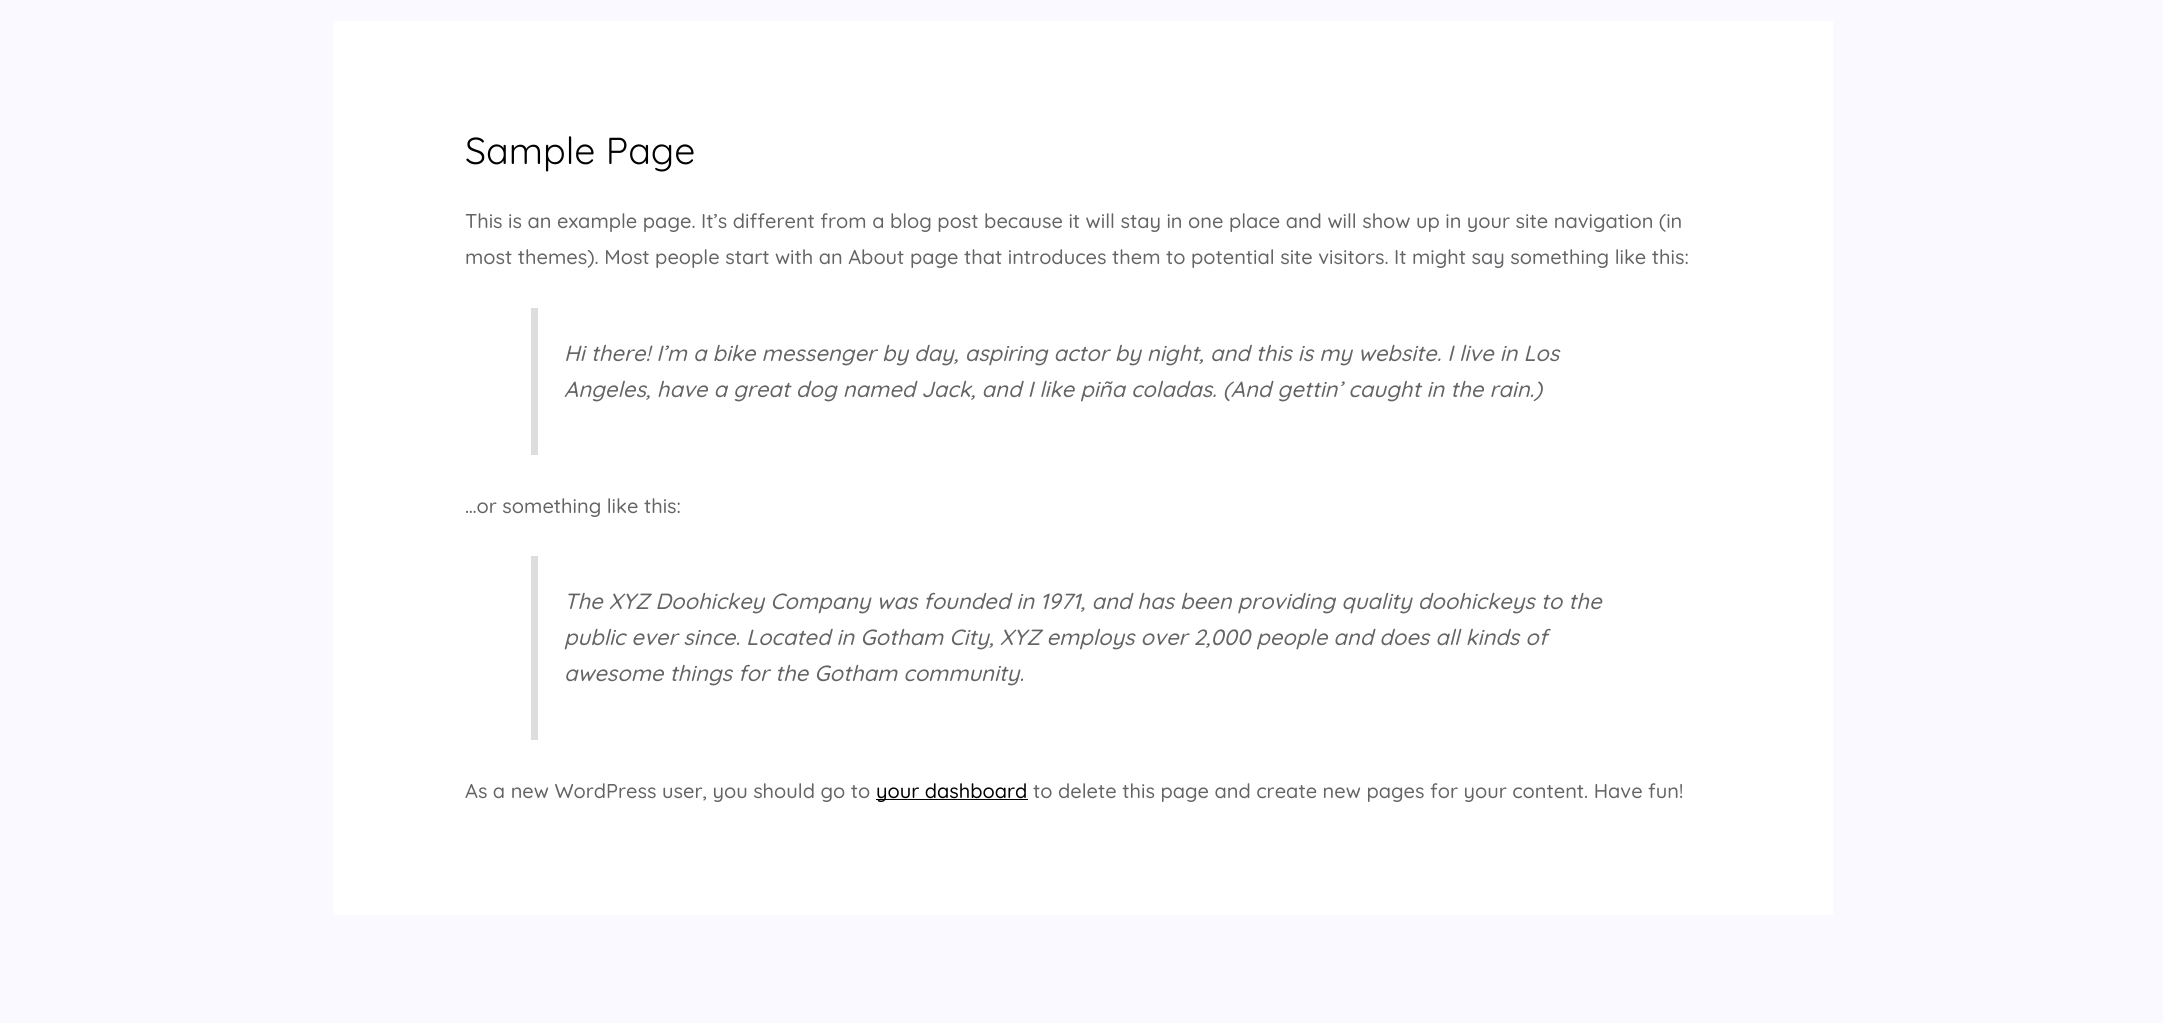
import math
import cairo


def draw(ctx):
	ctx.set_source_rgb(0.973, 0.973, 1)
	ctx.paint()
	ctx.set_source_rgb(1, 1, 1)
	ctx.rectangle(333, 21, 1500, 894)
	ctx.fill()
	ctx.select_font_face('Quicksand')
	ctx.set_font_size(37.5)
	ctx.set_source_rgb(0, 0, 0)
	ctx.move_to(465, 164)
	ctx.show_text('Sample Page')
	ctx.select_font_face('Quicksand Medium')
	ctx.set_font_size(20)
	ctx.set_source_rgb(0.392, 0.392, 0.404)
	ctx.move_to(465, 228)
	ctx.show_text('This is an example page. It’s different from a blog post because it will stay in one place and will show up in your site navigation (in')
	ctx.move_to(465, 264)
	ctx.show_text('most themes). Most people start with an About page that introduces them to potential site visitors. It might say something like this:')
	ctx.set_source_rgb(0.867, 0.867, 0.867)
	ctx.rectangle(531, 308, 7, 147)
	ctx.fill()
	ctx.select_font_face('Quicksand Medium', cairo.FONT_SLANT_ITALIC)
	ctx.set_font_size(22)
	ctx.set_source_rgb(0.392, 0.392, 0.404)
	ctx.move_to(564, 361)
	ctx.show_text('Hi there! I’m a bike messenger by day, aspiring actor by night, and this is my website. I live in Los')
	ctx.move_to(564, 397)
	ctx.show_text('Angeles, have a great dog named Jack, and I like piña coladas. (And gettin’ caught in the rain.)')
	ctx.select_font_face('Quicksand Medium')
	ctx.set_font_size(20)
	ctx.move_to(465, 513)
	ctx.show_text('…or something like this:')
	ctx.set_source_rgb(0.867, 0.867, 0.867)
	ctx.rectangle(531, 556, 7, 184)
	ctx.fill()
	ctx.select_font_face('Quicksand Medium', cairo.FONT_SLANT_ITALIC)
	ctx.set_font_size(22)
	ctx.set_source_rgb(0.392, 0.392, 0.404)
	for x, y, s in [
		(564, 609, 'The XYZ Doohickey Company was founded in 1971, and has been providing quality doohickeys to the'),
		(564, 645, 'public ever since. Located in Gotham City, XYZ employs over 2,000 people and does all kinds of'),
		(564, 681, 'awesome things for the Gotham community.'),
	]:
		ctx.move_to(x, y)
		ctx.show_text(s)
	ctx.select_font_face('Quicksand Medium')
	ctx.set_font_size(20)
	ctx.move_to(465, 798)
	ctx.show_text('As a new WordPress user, you should go to')
	ctx.set_source_rgb(0, 0, 0)
	ctx.rectangle(876, 799, 152, 1)
	ctx.fill()
	ctx.move_to(876, 798)
	ctx.show_text('your dashboard')
	ctx.set_source_rgb(0.392, 0.392, 0.404)
	ctx.move_to(1033, 798)
	ctx.show_text('to delete this page and create new pages for your content. Have fun!')


surface = cairo.ImageSurface(cairo.FORMAT_RGB24, 2163, 1023)
ctx = cairo.Context(surface)
options = cairo.FontOptions()
options.set_hint_metrics(cairo.HINT_METRICS_OFF)
options.set_hint_style(cairo.HINT_STYLE_NONE)
ctx.set_font_options(options)
ctx.set_miter_limit(4)
draw(ctx)
surface.write_to_png('image.png')
